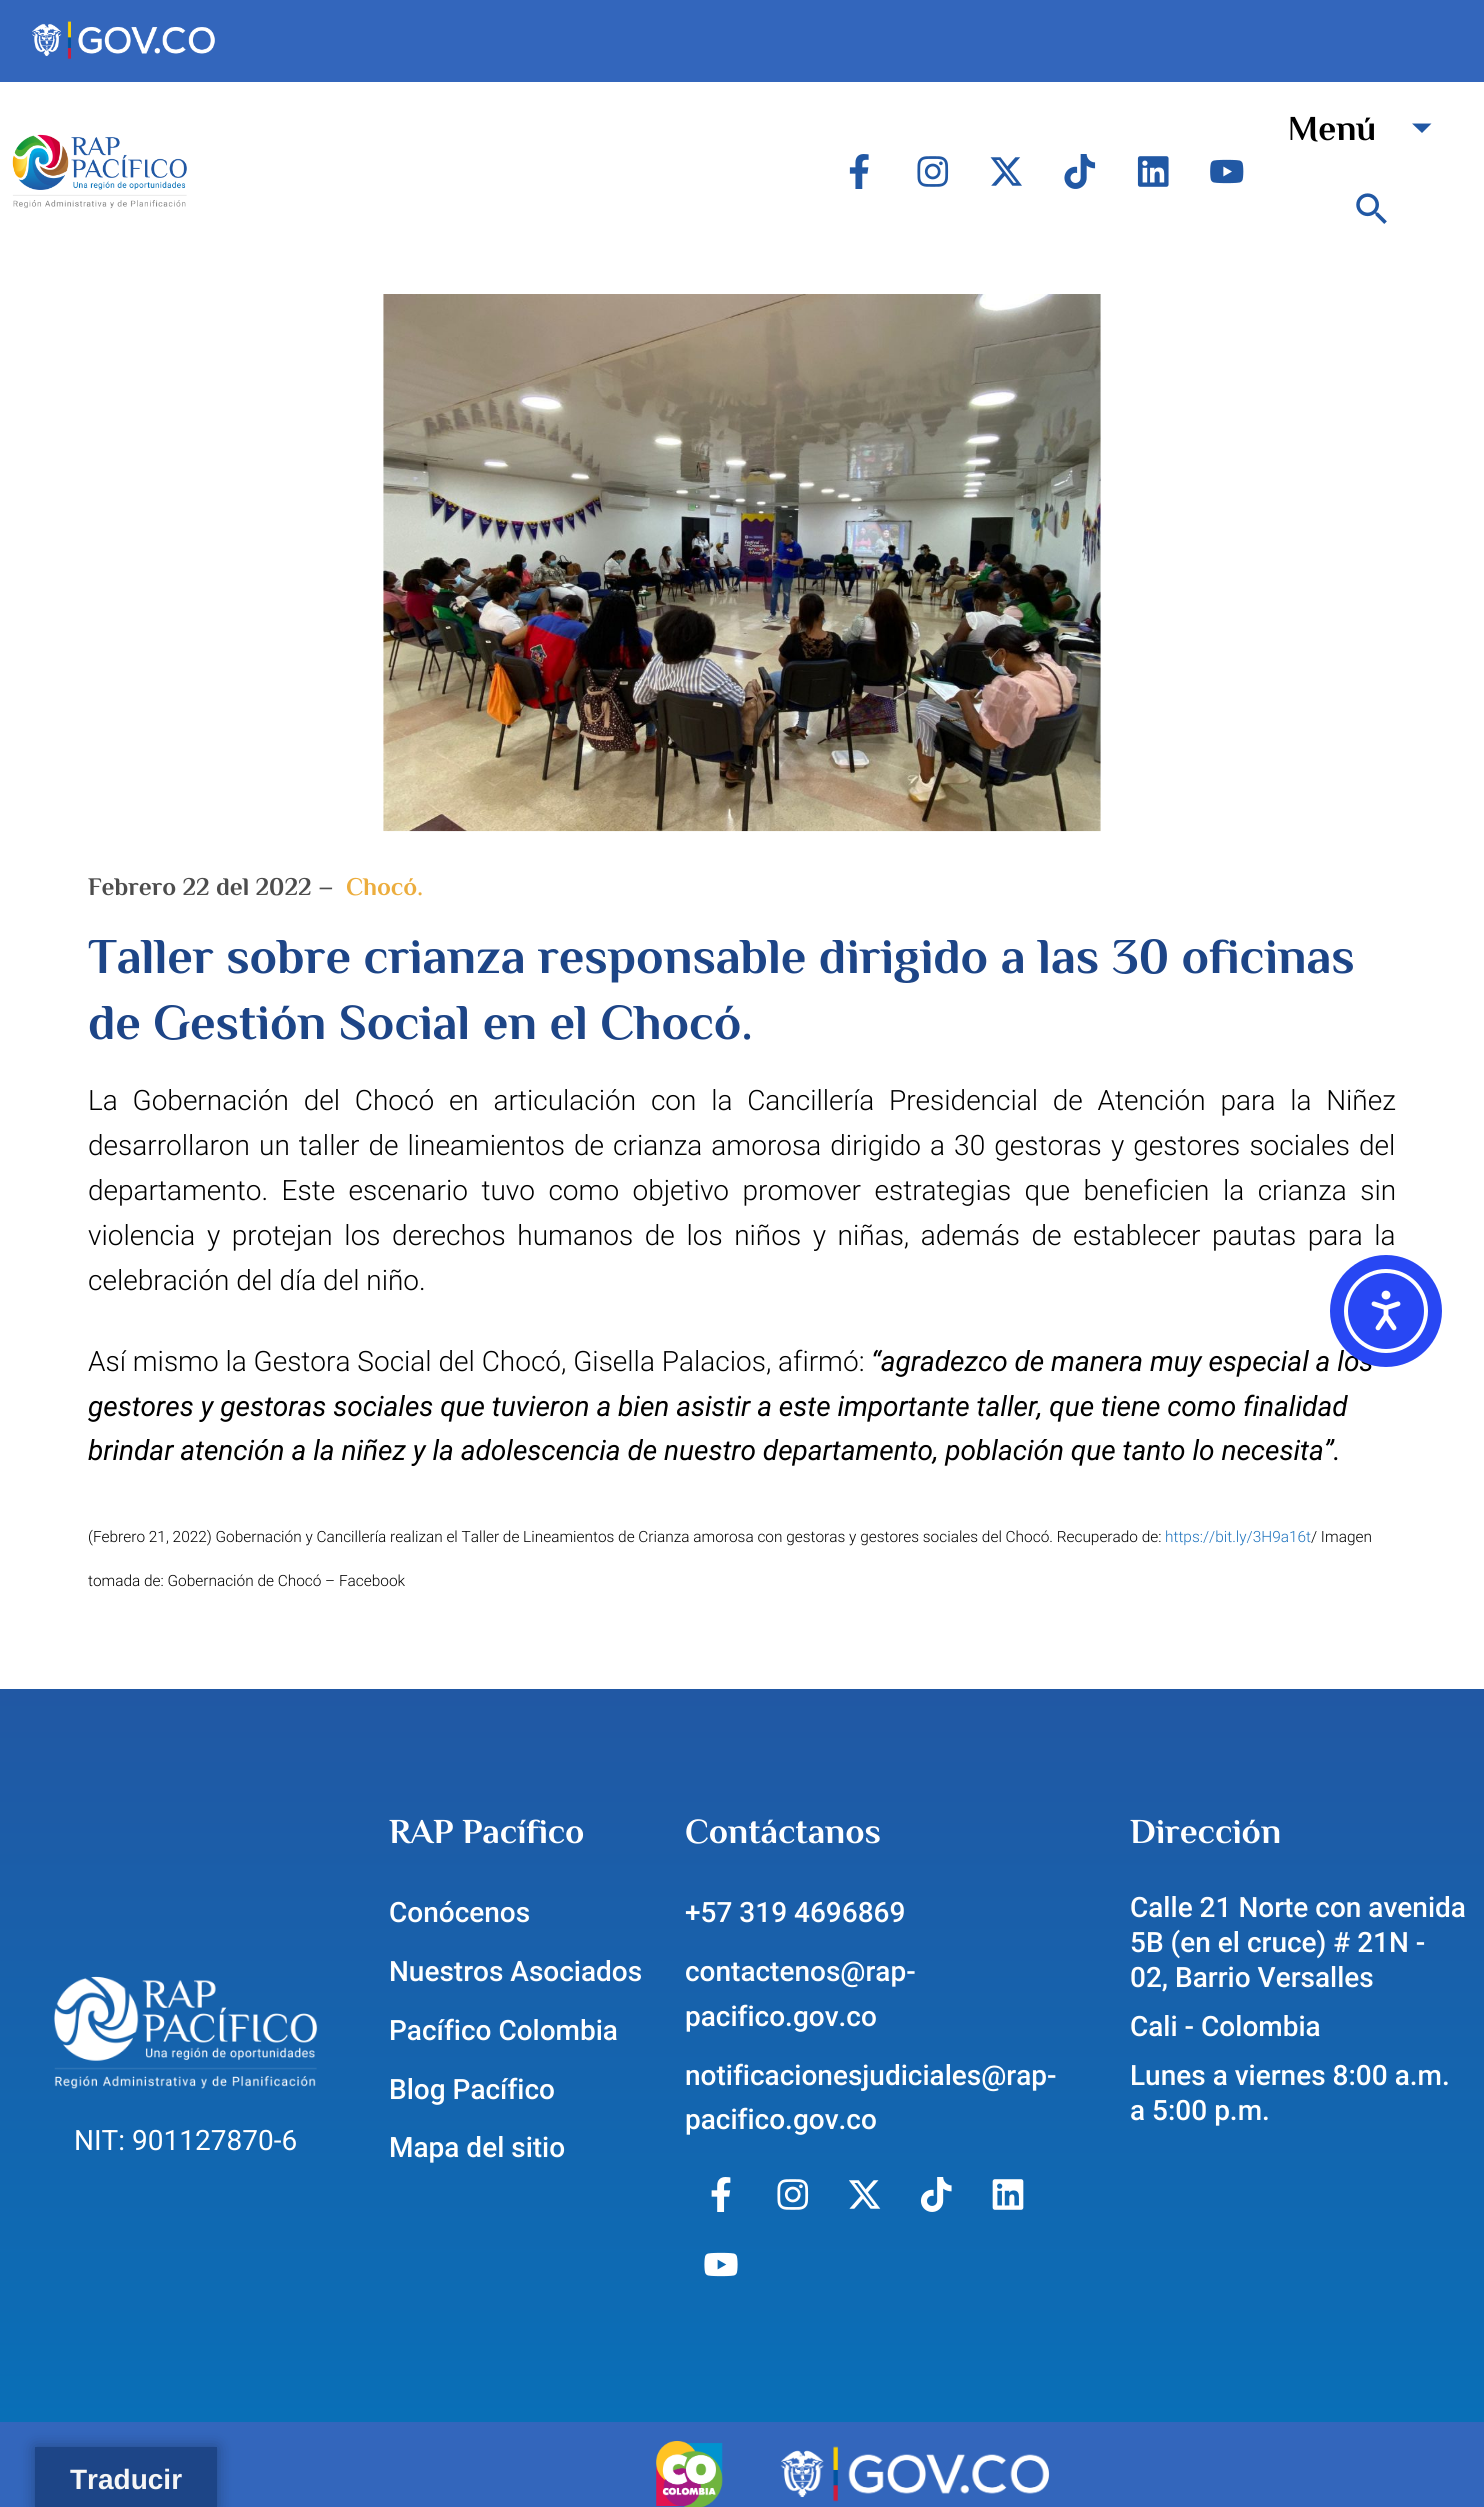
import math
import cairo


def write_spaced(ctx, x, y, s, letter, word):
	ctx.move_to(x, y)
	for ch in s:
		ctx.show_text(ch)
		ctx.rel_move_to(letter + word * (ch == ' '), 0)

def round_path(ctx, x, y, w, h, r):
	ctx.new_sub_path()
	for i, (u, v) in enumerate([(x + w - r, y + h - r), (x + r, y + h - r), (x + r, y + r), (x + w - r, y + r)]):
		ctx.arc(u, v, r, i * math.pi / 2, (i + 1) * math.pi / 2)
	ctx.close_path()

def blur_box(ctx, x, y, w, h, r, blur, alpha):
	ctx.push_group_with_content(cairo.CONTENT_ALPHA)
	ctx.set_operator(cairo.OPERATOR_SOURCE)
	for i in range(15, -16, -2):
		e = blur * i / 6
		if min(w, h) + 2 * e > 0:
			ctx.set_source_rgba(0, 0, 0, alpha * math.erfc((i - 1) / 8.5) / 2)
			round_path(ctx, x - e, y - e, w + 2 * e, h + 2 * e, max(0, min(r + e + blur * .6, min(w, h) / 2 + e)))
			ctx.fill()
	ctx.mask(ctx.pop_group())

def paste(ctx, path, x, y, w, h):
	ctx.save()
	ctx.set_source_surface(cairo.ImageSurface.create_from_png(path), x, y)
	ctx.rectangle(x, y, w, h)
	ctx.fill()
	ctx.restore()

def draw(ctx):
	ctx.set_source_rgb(1, 1, 1)
	ctx.paint()
	ctx.set_source_rgb(0.2, 0.4, 0.737)
	ctx.rectangle(0, 0, 1484, 82)
	ctx.fill()
	paste(ctx, 'media/1.png', 32, 21, 183, 38)
	ctx.select_font_face('Philosopher', cairo.FONT_SLANT_NORMAL, cairo.FONT_WEIGHT_BOLD)
	ctx.set_font_size(35)
	ctx.set_source_rgb(0, 0, 0)
	ctx.move_to(1288, 140)
	ctx.show_text('Menú')
	ctx.set_source_rgb(0.129, 0.345, 0.643)
	ctx.new_path()
	ctx.move_to(1412, 123.5)
	ctx.line_to(1431.5, 123.5)
	ctx.line_to(1422, 133)
	ctx.close_path()
	ctx.fill()
	paste(ctx, 'media/2.png', 1356, 193, 31, 31)
	paste(ctx, 'media/3.png', 12, 134, 175, 75)
	paste(ctx, 'media/4.png', 849, 154, 20, 35)
	paste(ctx, 'media/5.png', 917, 156, 32, 31)
	paste(ctx, 'media/6.png', 990, 157, 32, 29)
	paste(ctx, 'media/7.png', 1064, 154, 32, 35)
	paste(ctx, 'media/8.png', 1137, 156, 32, 31)
	paste(ctx, 'media/9.png', 1210, 159, 34, 25)
	paste(ctx, 'media/10.png', 383, 294, 718, 538)
	ctx.set_font_size(25.25)
	ctx.set_source_rgb(0.302, 0.302, 0.302)
	ctx.move_to(88, 895)
	ctx.show_text('Febrero 22 del 2022 –')
	ctx.set_source_rgb(0.925, 0.678, 0.243)
	ctx.move_to(346, 895)
	ctx.show_text('Chocó.')
	ctx.set_font_size(50)
	ctx.set_source_rgb(0.114, 0.271, 0.529)
	ctx.move_to(88, 973)
	ctx.show_text('Taller sobre crianza responsable dirigido a las 30 oficinas')
	ctx.move_to(88, 1039)
	ctx.show_text('de Gestión Social en el Chocó.')
	ctx.select_font_face('Roboto Light')
	ctx.set_font_size(28)
	ctx.set_source_rgb(0, 0, 0)
	write_spaced(ctx, 88, 1110, 'La Gobernación del Chocó en articulación con la Cancillería Presidencial de Atención para la Niñez', 0, 7.9)
	write_spaced(ctx, 88, 1155, 'desarrollaron un taller de lineamientos de crianza amorosa dirigido a 30 gestoras y gestores sociales del', 0, 2.25)
	write_spaced(ctx, 88, 1200, 'departamento. Este escenario tuvo como objetivo promover estrategias que beneficien la crianza sin', 0, 6.6)
	write_spaced(ctx, 88, 1245, 'violencia y protejan los derechos humanos de los niños y niñas, además de establecer pautas para la', 0, 4.75)
	ctx.move_to(88, 1290)
	ctx.show_text('celebración del día del niño.')
	ctx.move_to(88, 1371)
	ctx.show_text('Así mismo la Gestora Social del Chocó, Gisella Palacios, afirmó:')
	ctx.select_font_face('Roboto', cairo.FONT_SLANT_ITALIC)
	for x, y, s in [
		(871, 1371, '“agradezco de manera muy especial a los'),
		(88, 1416, 'gestores y gestoras sociales que tuvieron a bien asistir a este importante taller, que tiene como finalidad'),
		(88, 1460, 'brindar atención a la niñez y la adolescencia de nuestro departamento, población que tanto lo necesita”.'),
	]:
		ctx.move_to(x, y)
		ctx.show_text(s)
	ctx.select_font_face('Roboto Light')
	ctx.set_font_size(15.4)
	ctx.move_to(88, 1542)
	ctx.show_text('(Febrero 21, 2022) Gobernación y Cancillería realizan el Taller de Lineamientos de Crianza amorosa con gestoras y gestores sociales del Chocó. Recuperado de:')
	ctx.set_source_rgb(0.118, 0.451, 0.745)
	ctx.move_to(1165, 1542)
	ctx.show_text('https://bit.ly/3H9a16t')
	ctx.set_source_rgb(0, 0, 0)
	ctx.move_to(1311, 1542)
	ctx.show_text('/ Imagen')
	ctx.move_to(88, 1586)
	ctx.show_text('tomada de: Gobernación de Chocó – Facebook')
	ctx.set_source_rgb(0.157, 0.278, 0.953)
	ctx.new_path()
	ctx.arc(1386, 1311, 56, 0, 2 * math.pi)
	ctx.fill()
	ctx.arc(1386, 1311, 40, 0, 2 * math.pi)
	ctx.set_source_rgb(1, 1, 1)
	ctx.set_line_width(4)
	ctx.stroke()
	paste(ctx, 'media/11.png', 1371, 1290, 30, 41)
	gradient = cairo.LinearGradient(742, 1689, 742, 2422)
	gradient.add_color_stop_rgba(0, 0.129, 0.345, 0.643, 1)
	gradient.add_color_stop_rgba(1, 0.035, 0.435, 0.718, 1)
	ctx.set_source(gradient)
	ctx.rectangle(0, 1689, 1484, 733)
	ctx.fill()
	ctx.select_font_face('Philosopher', cairo.FONT_SLANT_NORMAL, cairo.FONT_WEIGHT_BOLD)
	ctx.set_font_size(35)
	ctx.set_source_rgb(1, 1, 1)
	ctx.move_to(389, 1843)
	ctx.show_text('RAP Pacífico')
	ctx.select_font_face('Roboto Medium')
	ctx.set_font_size(28)
	for x, y, s in [
		(389, 1922, 'Conócenos'),
		(389, 1981, 'Nuestros Asociados'),
		(389, 2040, 'Pacífico Colombia'),
		(389, 2099, 'Blog Pacífico'),
		(389, 2157, 'Mapa del sitio'),
	]:
		ctx.move_to(x, y)
		ctx.show_text(s)
	ctx.select_font_face('Philosopher', cairo.FONT_SLANT_NORMAL, cairo.FONT_WEIGHT_BOLD)
	ctx.set_font_size(35)
	ctx.move_to(685, 1843)
	ctx.show_text('Contáctanos')
	ctx.select_font_face('Roboto Medium')
	ctx.set_font_size(28)
	for x, y, s in [
		(685, 1922, '+57 319 4696869'),
		(685, 1981, 'contactenos@rap-'),
		(685, 2026, 'pacifico.gov.co'),
		(685, 2085, 'notificacionesjudiciales@rap-'),
		(685, 2129, 'pacifico.gov.co'),
	]:
		ctx.move_to(x, y)
		ctx.show_text(s)
	paste(ctx, 'media/12.png', 711, 2177, 20, 35)
	paste(ctx, 'media/13.png', 777, 2179, 32, 31)
	paste(ctx, 'media/14.png', 849, 2180, 32, 29)
	paste(ctx, 'media/15.png', 920, 2177, 32, 35)
	paste(ctx, 'media/16.png', 992, 2179, 32, 31)
	paste(ctx, 'media/17.png', 704, 2252, 34, 25)
	ctx.select_font_face('Philosopher', cairo.FONT_SLANT_NORMAL, cairo.FONT_WEIGHT_BOLD)
	ctx.set_font_size(35)
	ctx.move_to(1130, 1843)
	ctx.show_text('Dirección')
	ctx.select_font_face('Roboto Medium')
	ctx.set_font_size(28)
	for x, y, s in [
		(1130, 1917, 'Calle 21 Norte con avenida'),
		(1130, 1952, '5B (en el cruce) # 21N -'),
		(1130, 1987, '02, Barrio Versalles'),
		(1130, 2036, 'Cali - Colombia'),
		(1130, 2085, 'Lunes a viernes 8:00 a.m.'),
		(1130, 2120, 'a 5:00 p.m.'),
	]:
		ctx.move_to(x, y)
		ctx.show_text(s)
	paste(ctx, 'media/18.png', 54, 1976, 264, 113)
	ctx.select_font_face('Roboto')
	ctx.move_to(74, 2150)
	ctx.show_text('NIT: 901127870-6')
	ctx.set_source_rgb(0.2, 0.4, 0.737)
	ctx.rectangle(0, 2422, 1484, 85)
	ctx.fill()
	paste(ctx, 'media/19.png', 656, 2440, 67, 67)
	paste(ctx, 'media/20.png', 780, 2446, 270, 56)
	ctx.set_source_rgb(0, 0, 0)
	blur_box(ctx, 35, 2447, 182, 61, 0, 8, 0.3)
	ctx.set_source_rgb(0.114, 0.271, 0.529)
	ctx.rectangle(35, 2447, 182, 60)
	ctx.fill()
	ctx.select_font_face('Liberation Sans', cairo.FONT_SLANT_NORMAL, cairo.FONT_WEIGHT_BOLD)
	ctx.set_source_rgb(0.961, 0.961, 0.961)
	ctx.move_to(70, 2489)
	ctx.show_text('Traducir')


surface = cairo.ImageSurface(cairo.FORMAT_RGB24, 1484, 2507)
ctx = cairo.Context(surface)
options = cairo.FontOptions()
options.set_hint_metrics(cairo.HINT_METRICS_OFF)
options.set_hint_style(cairo.HINT_STYLE_NONE)
ctx.set_font_options(options)
ctx.set_miter_limit(4)
draw(ctx)
surface.write_to_png('image.png')
